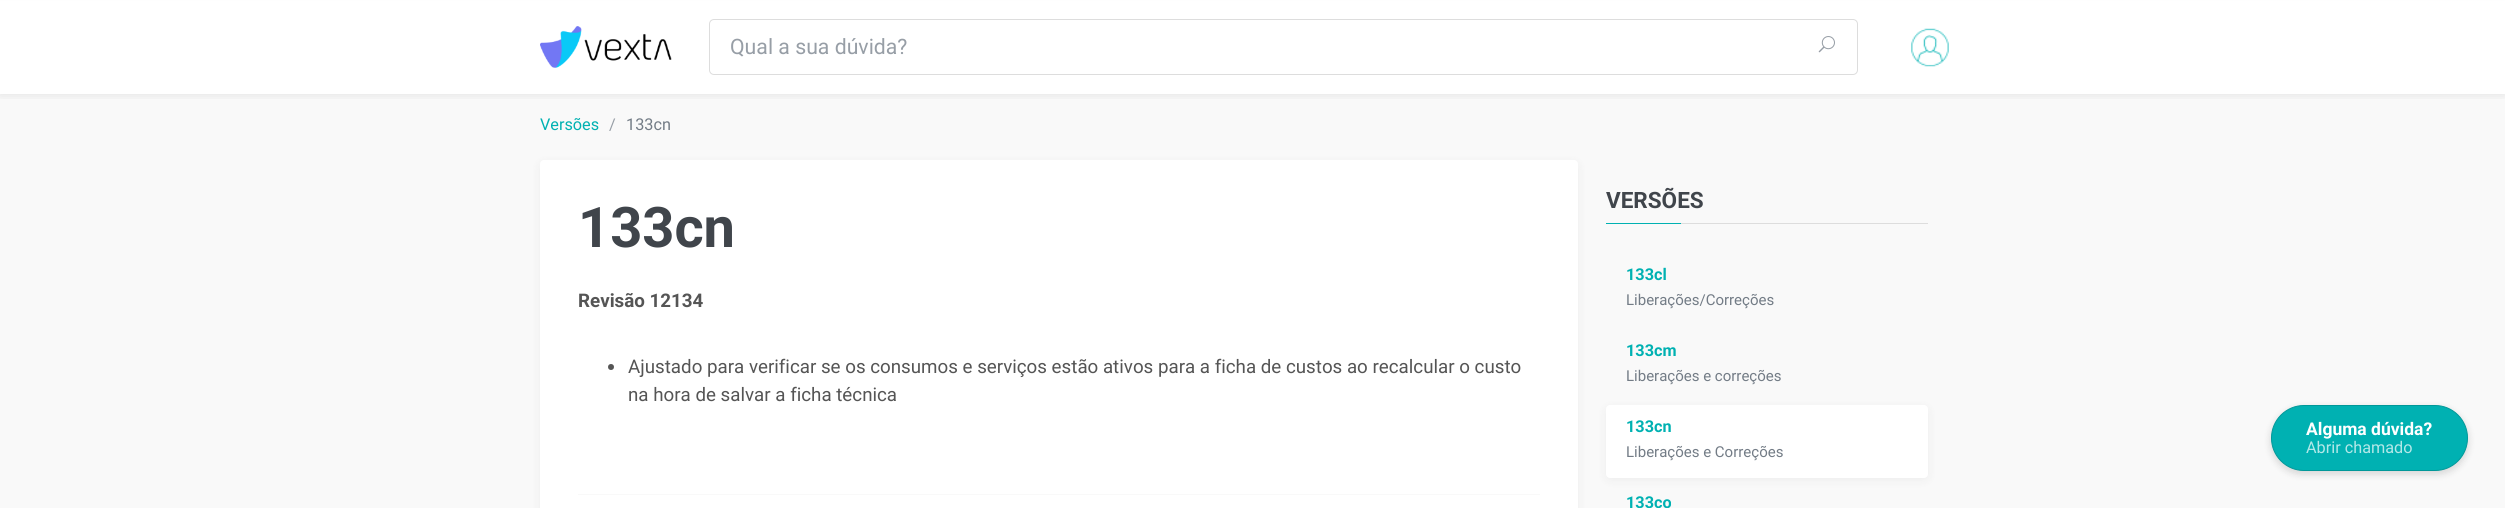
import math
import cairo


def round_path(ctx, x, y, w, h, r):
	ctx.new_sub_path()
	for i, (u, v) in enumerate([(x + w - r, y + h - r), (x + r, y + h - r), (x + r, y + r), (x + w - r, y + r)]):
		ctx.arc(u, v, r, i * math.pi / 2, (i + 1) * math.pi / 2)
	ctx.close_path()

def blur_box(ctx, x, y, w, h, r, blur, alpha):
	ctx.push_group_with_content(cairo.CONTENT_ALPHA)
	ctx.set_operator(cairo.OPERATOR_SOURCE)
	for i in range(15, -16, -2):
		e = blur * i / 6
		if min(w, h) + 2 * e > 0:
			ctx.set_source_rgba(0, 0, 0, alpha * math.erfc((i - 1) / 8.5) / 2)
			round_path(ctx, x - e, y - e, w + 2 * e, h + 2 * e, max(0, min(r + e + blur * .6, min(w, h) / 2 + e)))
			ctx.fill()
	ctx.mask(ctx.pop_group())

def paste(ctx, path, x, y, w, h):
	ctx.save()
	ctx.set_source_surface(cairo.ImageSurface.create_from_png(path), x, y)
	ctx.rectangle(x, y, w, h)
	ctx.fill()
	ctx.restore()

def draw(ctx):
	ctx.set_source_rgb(0.976, 0.976, 0.976)
	ctx.paint()
	ctx.set_source_rgb(0.867, 0.867, 0.867)
	ctx.rectangle(0, 0, 2505, 1)
	ctx.fill()
	ctx.save()
	ctx.rectangle(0, 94, 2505, 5)
	ctx.clip()
	ctx.set_source_rgb(0, 0, 0)
	blur_box(ctx, 0, 0, 2505, 94, 0, 6, 0.1)
	ctx.restore()
	ctx.set_source_rgba(1, 1, 1, 0.98)
	ctx.rectangle(0, 0, 2505, 94)
	ctx.fill()
	paste(ctx, 'media/1.png', 540, 26, 132, 42)
	round_path(ctx, 709.5, 19.5, 1148, 55, 4.5)
	ctx.set_source_rgb(0.867, 0.867, 0.867)
	ctx.set_line_width(1)
	ctx.stroke()
	ctx.select_font_face('Roboto')
	ctx.set_font_size(21.25)
	ctx.set_source_rgb(0.592, 0.62, 0.651)
	ctx.move_to(730, 54)
	ctx.show_text('Qual a sua dúvida?')
	paste(ctx, 'media/2.png', 1818, 36, 17, 17)
	paste(ctx, 'media/3.png', 1911, 28, 38, 39)
	ctx.set_font_size(16.25)
	ctx.set_source_rgb(0, 0.694, 0.698)
	ctx.move_to(540, 130)
	ctx.show_text('Versões')
	ctx.set_source_rgb(0.592, 0.62, 0.651)
	ctx.move_to(609, 130)
	ctx.show_text('/')
	ctx.set_source_rgb(0.451, 0.486, 0.525)
	ctx.move_to(626, 130)
	ctx.show_text('133cn')
	ctx.set_source_rgb(0, 0, 0)
	blur_box(ctx, 540, 163, 1038, 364, 4, 5, 0.05)
	ctx.set_source_rgb(1, 1, 1)
	round_path(ctx, 540, 160, 1038, 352, 4)
	ctx.fill()
	ctx.select_font_face('Roboto', cairo.FONT_SLANT_NORMAL, cairo.FONT_WEIGHT_BOLD)
	ctx.set_font_size(56)
	ctx.set_source_rgb(0.251, 0.271, 0.294)
	ctx.move_to(578, 247)
	ctx.show_text('133cn')
	ctx.set_font_size(18.75)
	ctx.set_source_rgb(0.333, 0.333, 0.333)
	ctx.move_to(578, 307)
	ctx.show_text('Revisão 12134')
	ctx.new_path()
	ctx.arc(611, 367, 3, 0, 2 * math.pi)
	ctx.fill()
	ctx.select_font_face('Roboto')
	ctx.move_to(628, 373)
	ctx.show_text('Ajustado para verificar se os consumos e serviços estão ativos para a ficha de custos ao recalcular o custo')
	ctx.move_to(628, 401)
	ctx.show_text('na hora de salvar a ficha técnica')
	ctx.set_source_rgb(0.976, 0.976, 0.976)
	ctx.rectangle(578, 494, 962, 1)
	ctx.fill()
	ctx.set_source_rgb(0.867, 0.867, 0.867)
	ctx.rectangle(1681, 223, 247, 1)
	ctx.fill()
	ctx.select_font_face('Roboto', cairo.FONT_SLANT_NORMAL, cairo.FONT_WEIGHT_BOLD)
	ctx.set_font_size(22.5)
	ctx.set_source_rgb(0.251, 0.271, 0.294)
	ctx.move_to(1606, 208)
	ctx.show_text('VERSÕES')
	ctx.set_source_rgb(0, 0.694, 0.698)
	ctx.rectangle(1606, 223, 75, 1)
	ctx.fill()
	ctx.set_font_size(16.25)
	ctx.move_to(1626, 280)
	ctx.show_text('133cl')
	ctx.select_font_face('Roboto')
	ctx.set_font_size(15)
	ctx.set_source_rgb(0.451, 0.486, 0.525)
	ctx.move_to(1626, 305)
	ctx.show_text('Liberações/Correções')
	ctx.select_font_face('Roboto', cairo.FONT_SLANT_NORMAL, cairo.FONT_WEIGHT_BOLD)
	ctx.set_font_size(16.25)
	ctx.set_source_rgb(0, 0.694, 0.698)
	ctx.move_to(1626, 356)
	ctx.show_text('133cm')
	ctx.select_font_face('Roboto')
	ctx.set_font_size(15)
	ctx.set_source_rgb(0.451, 0.486, 0.525)
	ctx.move_to(1626, 381)
	ctx.show_text('Liberações e correções')
	ctx.set_source_rgb(0, 0, 0)
	blur_box(ctx, 1606, 408, 322, 72, 4, 5, 0.05)
	ctx.set_source_rgb(1, 1, 1)
	round_path(ctx, 1606, 405, 322, 73, 4)
	ctx.fill()
	ctx.select_font_face('Roboto', cairo.FONT_SLANT_NORMAL, cairo.FONT_WEIGHT_BOLD)
	ctx.set_font_size(16.25)
	ctx.set_source_rgb(0, 0.694, 0.698)
	ctx.move_to(1626, 432)
	ctx.show_text('133cn')
	ctx.select_font_face('Roboto')
	ctx.set_font_size(15)
	ctx.set_source_rgb(0.451, 0.486, 0.525)
	ctx.move_to(1626, 457)
	ctx.show_text('Liberações e Correções')
	ctx.select_font_face('Roboto', cairo.FONT_SLANT_NORMAL, cairo.FONT_WEIGHT_BOLD)
	ctx.set_font_size(16.25)
	ctx.set_source_rgb(0, 0.694, 0.698)
	ctx.move_to(1626, 508)
	ctx.show_text('133co')
	ctx.set_source_rgb(0, 0, 0)
	blur_box(ctx, 2271, 408, 197, 66, 33, 4, 0.15)
	ctx.set_source_rgb(0, 0.694, 0.698)
	round_path(ctx, 2271.5, 405.5, 196, 65, 32.5)
	ctx.fill_preserve()
	ctx.set_source_rgb(0, 0.596, 0.6)
	ctx.stroke()
	ctx.set_font_size(17.5)
	ctx.set_source_rgb(1, 1, 1)
	ctx.move_to(2306, 435)
	ctx.show_text('Alguma dúvida?')
	ctx.select_font_face('Roboto')
	ctx.set_font_size(16.25)
	ctx.set_source_rgb(0.702, 0.91, 0.91)
	ctx.move_to(2306, 453)
	ctx.show_text('Abrir chamado')


surface = cairo.ImageSurface(cairo.FORMAT_RGB24, 2505, 508)
ctx = cairo.Context(surface)
options = cairo.FontOptions()
options.set_hint_metrics(cairo.HINT_METRICS_OFF)
options.set_hint_style(cairo.HINT_STYLE_NONE)
ctx.set_font_options(options)
ctx.set_miter_limit(4)
draw(ctx)
surface.write_to_png('image.png')
